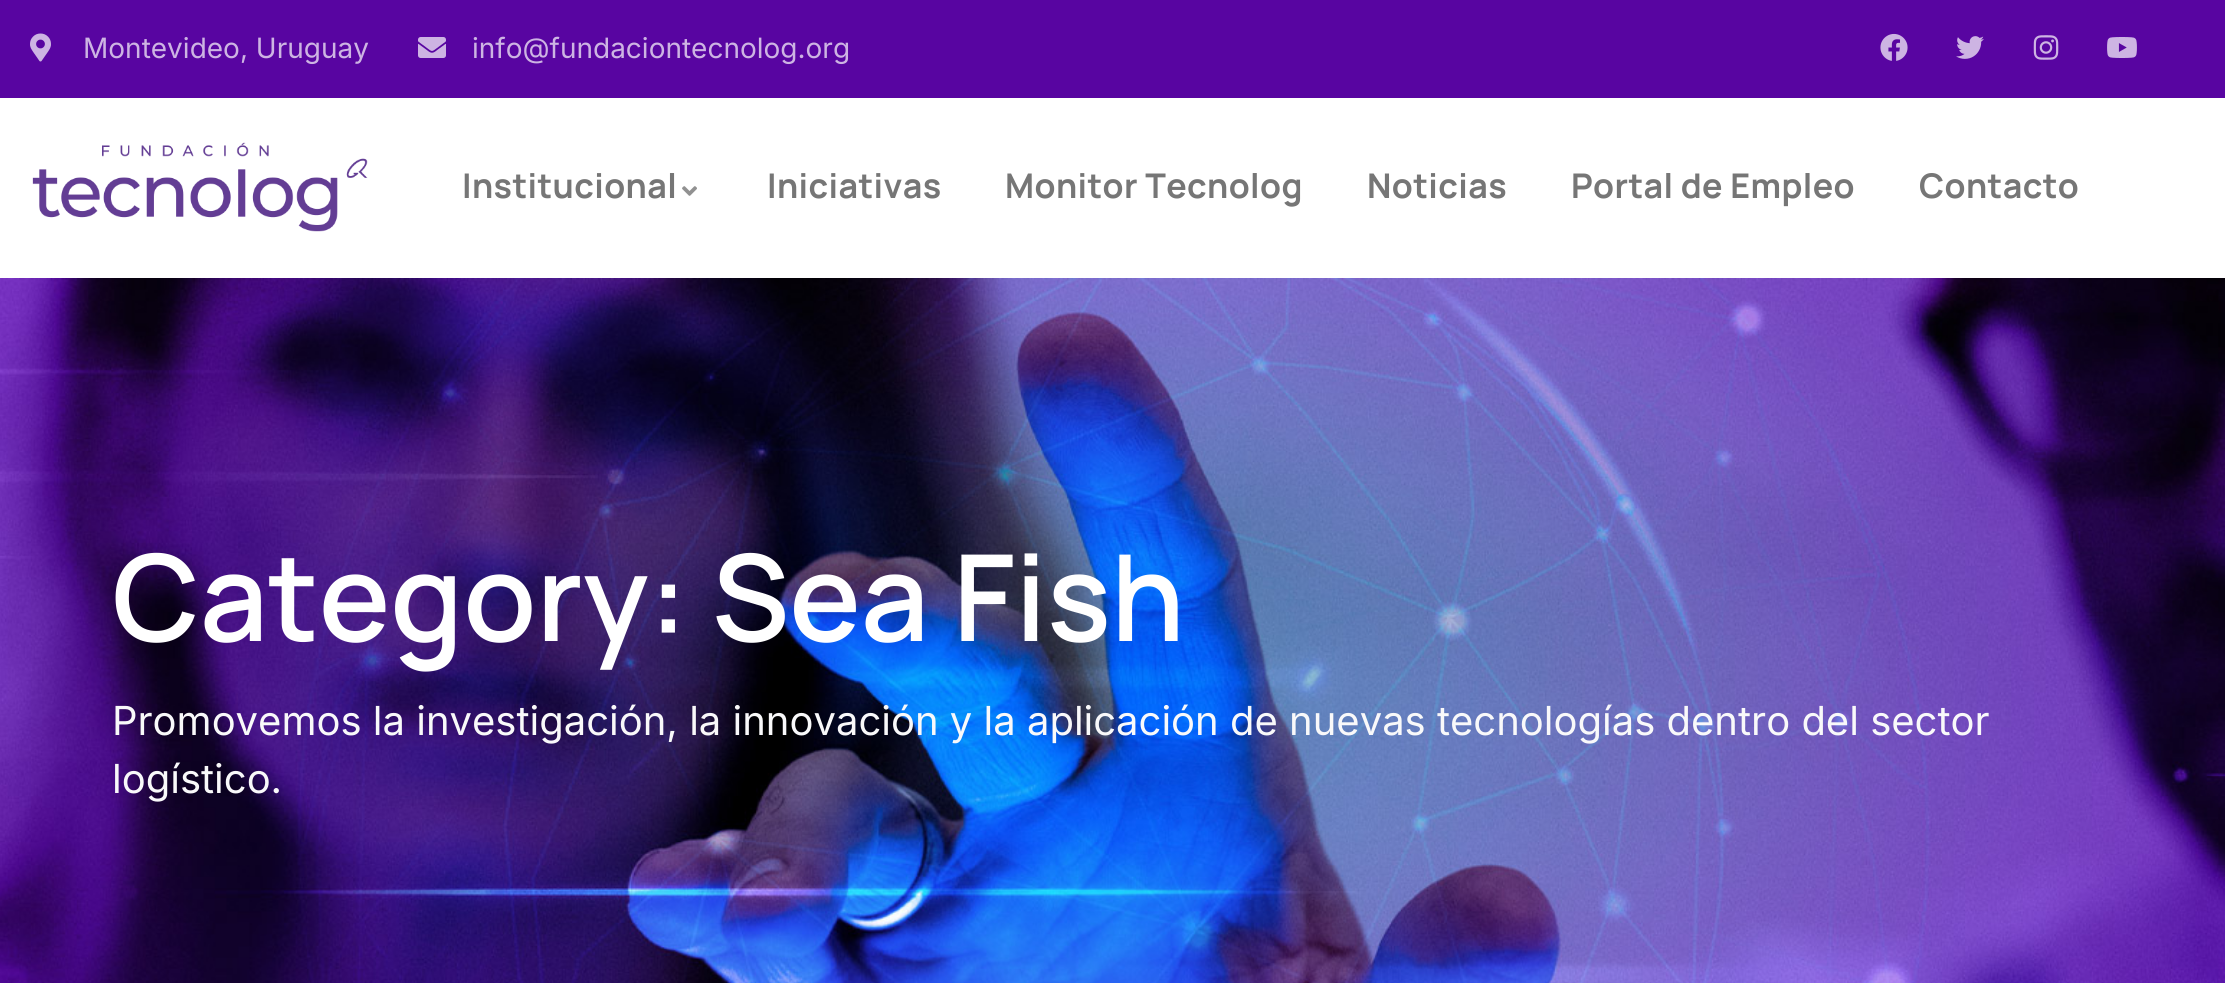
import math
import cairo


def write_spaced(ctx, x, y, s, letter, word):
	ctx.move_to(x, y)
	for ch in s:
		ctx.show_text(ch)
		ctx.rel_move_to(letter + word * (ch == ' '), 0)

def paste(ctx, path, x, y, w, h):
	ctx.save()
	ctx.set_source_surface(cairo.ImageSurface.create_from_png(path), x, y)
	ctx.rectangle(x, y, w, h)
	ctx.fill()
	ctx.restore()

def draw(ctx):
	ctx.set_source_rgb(1, 1, 1)
	ctx.paint()
	ctx.set_source_rgb(0.345, 0.02, 0.631)
	ctx.rectangle(0, 0, 2225, 98)
	ctx.fill()
	paste(ctx, 'media/1.png', 30, 33, 21, 29)
	ctx.select_font_face('Inter')
	ctx.set_font_size(28)
	ctx.set_source_rgb(0.804, 0.706, 0.89)
	ctx.move_to(83, 58)
	ctx.show_text('Montevideo, Uruguay')
	paste(ctx, 'media/2.png', 418, 37, 28, 21)
	ctx.move_to(472, 58)
	ctx.show_text('info@fundaciontecnolog.org')
	paste(ctx, 'media/3.png', 1880, 33, 28, 28)
	paste(ctx, 'media/4.png', 1956, 36, 28, 23)
	paste(ctx, 'media/5.png', 2033, 35, 26, 25)
	paste(ctx, 'media/6.png', 2107, 37, 30, 21)
	paste(ctx, 'media/7.png', 32, 142, 336, 90)
	ctx.select_font_face('Manrope', cairo.FONT_SLANT_NORMAL, cairo.FONT_WEIGHT_BOLD)
	ctx.set_font_size(34)
	ctx.set_source_rgb(0.463, 0.463, 0.463)
	write_spaced(ctx, 462, 198, 'Institucional', 0.4, 0)
	paste(ctx, 'media/8.png', 682, 186, 15, 10)
	for x, y, s in [
		(767, 198, 'Iniciativas'),
		(1005, 198, 'Monitor Tecnolog'),
		(1367, 198, 'Noticias'),
		(1571, 198, 'Portal de Empleo'),
		(1919, 198, 'Contacto'),
	]:
		write_spaced(ctx, x, y, s, 0.4, 0)
	paste(ctx, 'media/9.png', 0, 278, 2225, 705)
	ctx.select_font_face('Manrope SemiBold')
	ctx.set_font_size(120)
	ctx.set_source_rgb(1, 1, 1)
	ctx.move_to(112, 641)
	ctx.show_text('Category: Sea Fish')
	ctx.select_font_face('Inter')
	ctx.set_font_size(40)
	ctx.set_source_rgb(0.973, 0.976, 0.98)
	ctx.move_to(112, 735)
	ctx.show_text('Promovemos la investigación, la innovación y la aplicación de nuevas tecnologías dentro del sector')
	ctx.move_to(112, 793)
	ctx.show_text('logístico.')


surface = cairo.ImageSurface(cairo.FORMAT_RGB24, 2225, 983)
ctx = cairo.Context(surface)
options = cairo.FontOptions()
options.set_hint_metrics(cairo.HINT_METRICS_OFF)
options.set_hint_style(cairo.HINT_STYLE_NONE)
ctx.set_font_options(options)
ctx.set_miter_limit(4)
draw(ctx)
surface.write_to_png('image.png')
